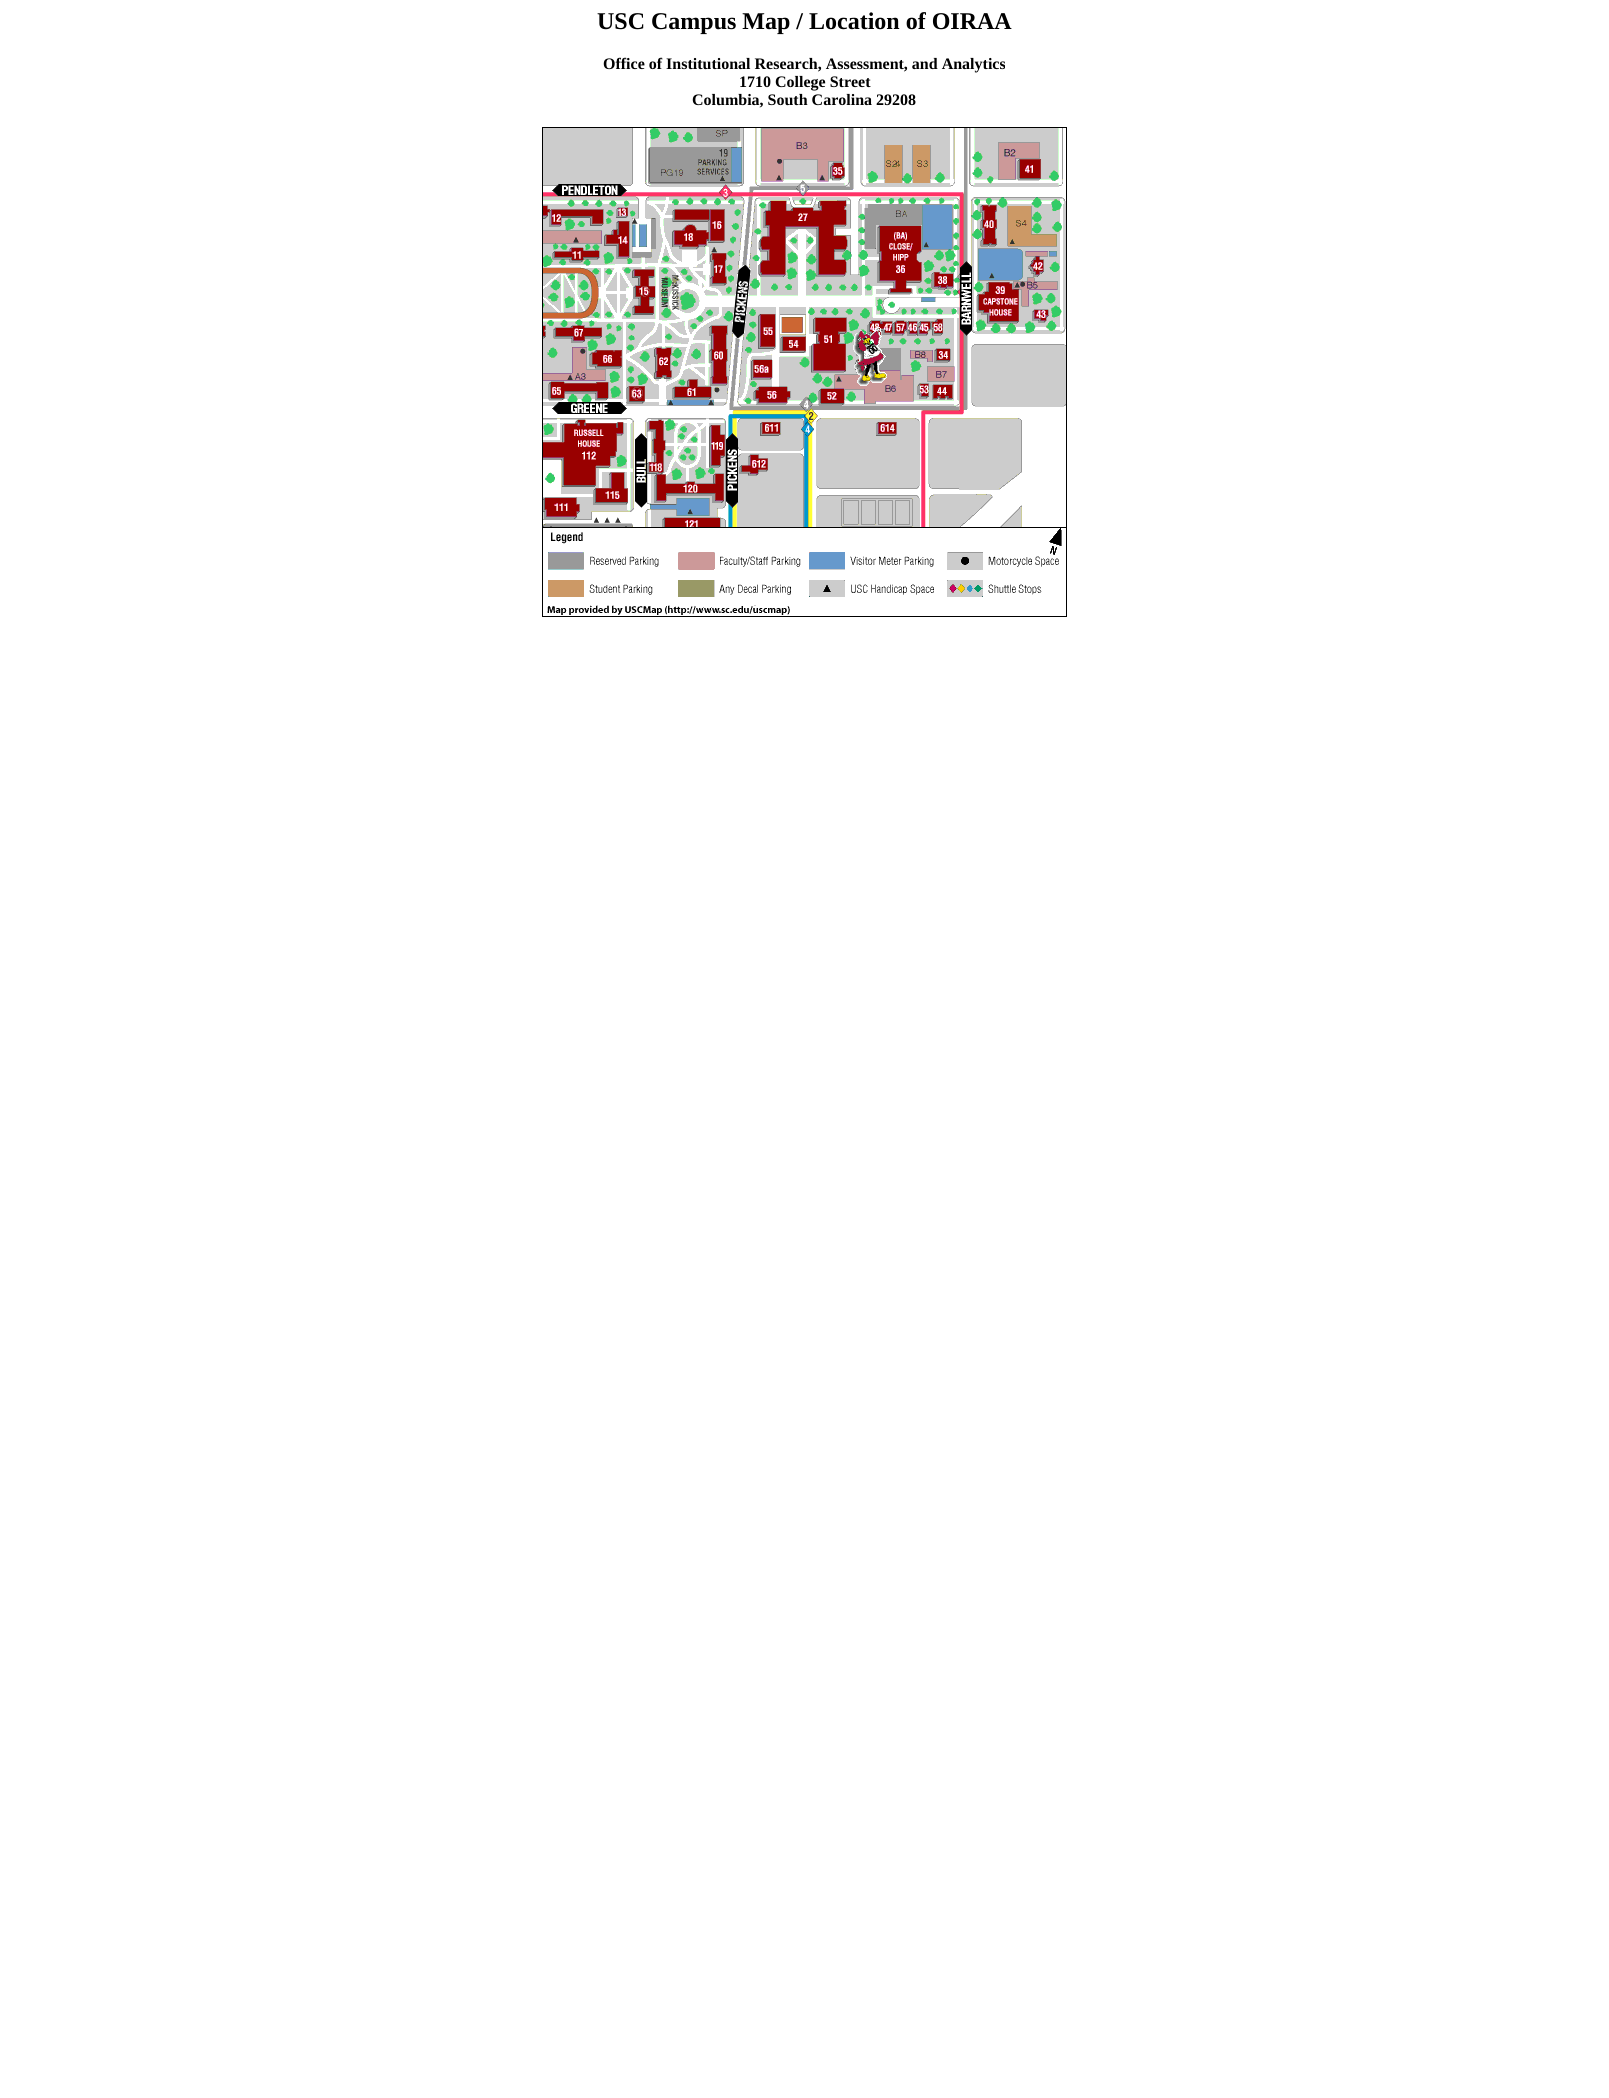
import math
import cairo


def paste(ctx, path, x, y, w, h):
	ctx.save()
	ctx.set_source_surface(cairo.ImageSurface.create_from_png(path), x, y)
	ctx.rectangle(x, y, w, h)
	ctx.fill()
	ctx.restore()

def draw(ctx):
	ctx.set_source_rgb(1, 1, 1)
	ctx.paint()
	ctx.select_font_face('Liberation Serif', cairo.FONT_SLANT_NORMAL, cairo.FONT_WEIGHT_BOLD)
	ctx.set_font_size(24)
	ctx.set_source_rgb(0, 0, 0)
	ctx.move_to(597, 29)
	ctx.show_text('USC Campus Map / Location of OIRAA')
	ctx.set_font_size(16)
	for x, y, s in [
		(603, 69, 'Office of Institutional Research, Assessment, and Analytics'),
		(739, 87, '1710 College Street'),
		(692, 105, 'Columbia, South Carolina 29208'),
	]:
		ctx.move_to(x, y)
		ctx.show_text(s)
	paste(ctx, 'media/1.png', 542, 127, 525, 490)


surface = cairo.ImageSurface(cairo.FORMAT_RGB24, 1609, 2098)
ctx = cairo.Context(surface)
options = cairo.FontOptions()
options.set_hint_metrics(cairo.HINT_METRICS_OFF)
options.set_hint_style(cairo.HINT_STYLE_NONE)
ctx.set_font_options(options)
ctx.set_miter_limit(4)
draw(ctx)
surface.write_to_png('image.png')
